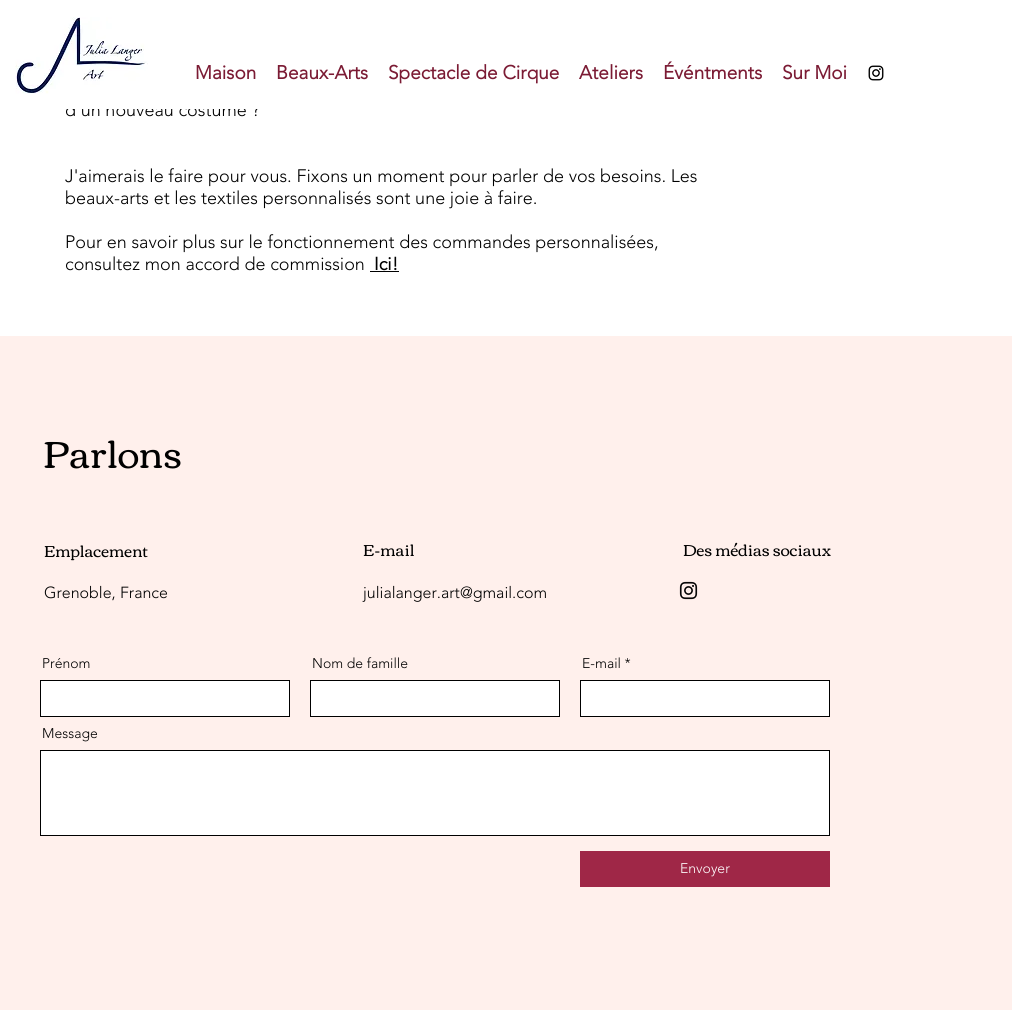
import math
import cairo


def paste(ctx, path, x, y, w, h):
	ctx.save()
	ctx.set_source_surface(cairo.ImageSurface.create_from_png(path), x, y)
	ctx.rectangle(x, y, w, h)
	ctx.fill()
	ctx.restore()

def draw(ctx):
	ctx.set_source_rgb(1, 1, 1)
	ctx.paint()
	paste(ctx, 'media/1.png', 15, 17, 133, 77)
	ctx.select_font_face('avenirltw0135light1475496', cairo.FONT_SLANT_NORMAL, cairo.FONT_WEIGHT_BOLD)
	ctx.set_font_size(19)
	ctx.set_source_rgb(0.482, 0.106, 0.204)
	for x, y, s in [
		(195, 79, 'Maison'),
		(276, 79, 'Beaux-Arts'),
		(388, 79, 'Spectacle de Cirque'),
		(579, 79, 'Ateliers'),
		(663, 79, 'Événtments'),
		(782, 79, 'Sur Moi'),
	]:
		ctx.move_to(x, y)
		ctx.show_text(s)
	paste(ctx, 'media/2.png', 868, 65, 16, 16)
	ctx.select_font_face('avenirltw0135light1475496 Light')
	ctx.set_font_size(18)
	ctx.set_source_rgb(0, 0, 0)
	ctx.move_to(65, 116)
	ctx.show_text('d\'un nouveau costume ?')
	ctx.set_source_rgb(1, 1, 1)
	ctx.rectangle(67, 102, 193, 7)
	ctx.fill()
	ctx.set_source_rgb(0, 0, 0)
	for x, y, s in [
		(65, 182, 'J\'aimerais le faire pour vous. Fixons un moment pour parler de vos besoins. Les'),
		(65, 204, 'beaux-arts et les textiles personnalisés sont une joie à faire.'),
		(65, 248, 'Pour en savoir plus sur le fonctionnement des commandes personnalisées,'),
		(65, 270, 'consultez mon accord de commission'),
	]:
		ctx.move_to(x, y)
		ctx.show_text(s)
	ctx.select_font_face('avenirltw0135light1475496', cairo.FONT_SLANT_NORMAL, cairo.FONT_WEIGHT_BOLD)
	ctx.move_to(374, 270)
	ctx.show_text('Ici!')
	ctx.rectangle(370, 271, 29, 1)
	ctx.fill()
	ctx.set_source_rgb(1, 0.941, 0.922)
	ctx.rectangle(0, 336, 1012, 674)
	ctx.fill()
	ctx.select_font_face('Corben')
	ctx.set_font_size(38)
	ctx.set_source_rgb(0, 0, 0)
	ctx.move_to(43, 468)
	ctx.show_text('Parlons')
	ctx.set_font_size(16)
	for x, y, s in [
		(44, 557, 'Emplacement'),
		(363, 556, 'E-mail'),
		(683, 556, 'Des médias sociaux'),
	]:
		ctx.move_to(x, y)
		ctx.show_text(s)
	ctx.select_font_face('avenirltw0135light1475496 Light')
	ctx.move_to(44, 598)
	ctx.show_text('Grenoble, France')
	ctx.move_to(363, 598)
	ctx.show_text('julialanger.art@gmail.com')
	paste(ctx, 'media/3.png', 679, 581, 19, 19)
	ctx.set_font_size(14)
	ctx.move_to(42, 668)
	ctx.show_text('Prénom')
	ctx.set_source_rgb(1, 1, 1)
	ctx.rectangle(40.5, 680.5, 249, 36)
	ctx.fill_preserve()
	ctx.set_source_rgb(0, 0, 0)
	ctx.set_line_width(1)
	ctx.stroke()
	ctx.move_to(312, 668)
	ctx.show_text('Nom de famille')
	ctx.set_source_rgb(1, 1, 1)
	ctx.rectangle(310.5, 680.5, 249, 36)
	ctx.fill_preserve()
	ctx.set_source_rgb(0, 0, 0)
	ctx.stroke()
	ctx.move_to(582, 668)
	ctx.show_text('E-mail *')
	ctx.set_source_rgb(1, 1, 1)
	ctx.rectangle(580.5, 680.5, 249, 36)
	ctx.fill_preserve()
	ctx.set_source_rgb(0, 0, 0)
	ctx.stroke()
	ctx.move_to(42, 738)
	ctx.show_text('Message')
	ctx.set_source_rgb(1, 1, 1)
	ctx.rectangle(40.5, 750.5, 789, 85)
	ctx.fill_preserve()
	ctx.set_source_rgb(0, 0, 0)
	ctx.stroke()
	ctx.set_source_rgb(0.624, 0.153, 0.278)
	ctx.rectangle(580, 851, 250, 36)
	ctx.fill()
	ctx.set_source_rgb(1, 1, 1)
	ctx.move_to(680, 873)
	ctx.show_text('Envoyer')


surface = cairo.ImageSurface(cairo.FORMAT_RGB24, 1012, 1010)
ctx = cairo.Context(surface)
options = cairo.FontOptions()
options.set_hint_metrics(cairo.HINT_METRICS_OFF)
options.set_hint_style(cairo.HINT_STYLE_NONE)
ctx.set_font_options(options)
ctx.set_miter_limit(4)
draw(ctx)
surface.write_to_png('image.png')
